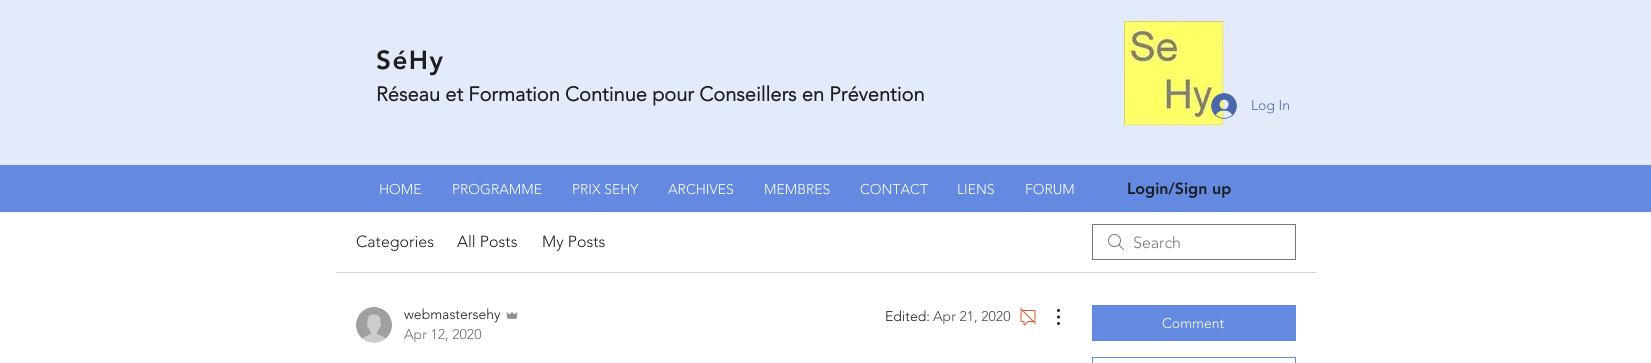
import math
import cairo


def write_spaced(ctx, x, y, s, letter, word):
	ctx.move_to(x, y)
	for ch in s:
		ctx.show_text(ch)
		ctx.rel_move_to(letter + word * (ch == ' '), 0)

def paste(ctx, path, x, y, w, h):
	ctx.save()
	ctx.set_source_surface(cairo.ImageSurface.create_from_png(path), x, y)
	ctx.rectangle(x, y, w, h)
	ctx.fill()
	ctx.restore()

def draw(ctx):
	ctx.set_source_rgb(1, 1, 1)
	ctx.paint()
	ctx.set_source_rgb(0.89, 0.918, 0.98)
	ctx.rectangle(0, 0, 1651, 165)
	ctx.fill()
	ctx.select_font_face('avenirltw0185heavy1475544 Black')
	ctx.set_font_size(26)
	ctx.set_source_rgb(0.114, 0.114, 0.122)
	write_spaced(ctx, 376, 69, 'SéHy', 1.5, 0)
	paste(ctx, 'media/1.png', 1124, 21, 100, 105)
	ctx.select_font_face('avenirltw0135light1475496', cairo.FONT_SLANT_NORMAL, cairo.FONT_WEIGHT_BOLD)
	ctx.set_font_size(20)
	ctx.move_to(376, 101)
	ctx.show_text('Réseau et Formation Continue pour Conseillers en Prévention')
	paste(ctx, 'media/2.png', 1211, 93, 26, 26)
	ctx.select_font_face('avenirltw0135light1475496 Light')
	ctx.set_font_size(14)
	ctx.set_source_rgb(0.29, 0.404, 0.663)
	ctx.move_to(1251, 110)
	ctx.show_text('Log In')
	ctx.set_source_rgb(0.388, 0.537, 0.882)
	ctx.rectangle(0, 165, 1651, 47)
	ctx.fill()
	ctx.set_source_rgb(1, 1, 1)
	for x, y, s in [
		(379, 194, 'HOME'),
		(452, 194, 'PROGRAMME'),
		(572, 194, 'PRIX SEHY'),
		(668, 194, 'ARCHIVES'),
		(764, 194, 'MEMBRES'),
		(860, 194, 'CONTACT'),
		(957, 194, 'LIENS'),
		(1025, 194, 'FORUM'),
	]:
		ctx.move_to(x, y)
		ctx.show_text(s)
	ctx.select_font_face('avenirltw0185heavy1475544 Black')
	ctx.set_font_size(16)
	ctx.set_source_rgb(0.114, 0.114, 0.122)
	ctx.move_to(1127, 194)
	ctx.show_text('Login/Sign up')
	ctx.set_source_rgb(0.824, 0.824, 0.824)
	ctx.rectangle(336, 272, 980, 1)
	ctx.fill()
	ctx.select_font_face('avenirltw0135light1475496 Light')
	ctx.set_source_rgb(0.114, 0.114, 0.122)
	for x, y, s in [
		(356, 247, 'Categories'),
		(457, 247, 'All Posts'),
		(542, 247, 'My Posts'),
	]:
		ctx.move_to(x, y)
		ctx.show_text(s)
	paste(ctx, 'media/3.png', 1108, 234, 16, 16)
	ctx.rectangle(1092.5, 224.5, 203, 35)
	ctx.set_source_rgb(0.467, 0.467, 0.475)
	ctx.set_line_width(1)
	ctx.stroke()
	ctx.move_to(1133, 248)
	ctx.show_text('Search')
	paste(ctx, 'media/4.png', 356, 307, 36, 36)
	ctx.set_font_size(14)
	ctx.set_source_rgb(0.114, 0.114, 0.122)
	ctx.move_to(404, 319)
	ctx.show_text('webmastersehy')
	paste(ctx, 'media/5.png', 506, 312, 12, 7)
	ctx.set_source_rgb(0.431, 0.431, 0.439)
	ctx.move_to(404, 339)
	ctx.show_text('Apr 12, 2020')
	ctx.set_source_rgb(0.114, 0.114, 0.122)
	ctx.move_to(885, 321)
	ctx.show_text('Edited:')
	ctx.set_source_rgb(0.29, 0.29, 0.298)
	ctx.move_to(933, 321)
	ctx.show_text('Apr 21, 2020')
	paste(ctx, 'media/6.png', 1020, 308, 16, 18)
	paste(ctx, 'media/7.png', 1057, 309, 3, 16)
	ctx.set_source_rgb(0.388, 0.537, 0.882)
	ctx.rectangle(1092, 305, 204, 36)
	ctx.fill()
	ctx.set_source_rgb(1, 1, 1)
	ctx.move_to(1162, 328)
	ctx.show_text('Comment')
	ctx.rectangle(1092.5, 357.5, 203, 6)
	ctx.set_source_rgb(0.388, 0.537, 0.882)
	ctx.stroke()


surface = cairo.ImageSurface(cairo.FORMAT_RGB24, 1651, 363)
ctx = cairo.Context(surface)
options = cairo.FontOptions()
options.set_hint_metrics(cairo.HINT_METRICS_OFF)
options.set_hint_style(cairo.HINT_STYLE_NONE)
ctx.set_font_options(options)
ctx.set_miter_limit(4)
draw(ctx)
surface.write_to_png('image.png')
